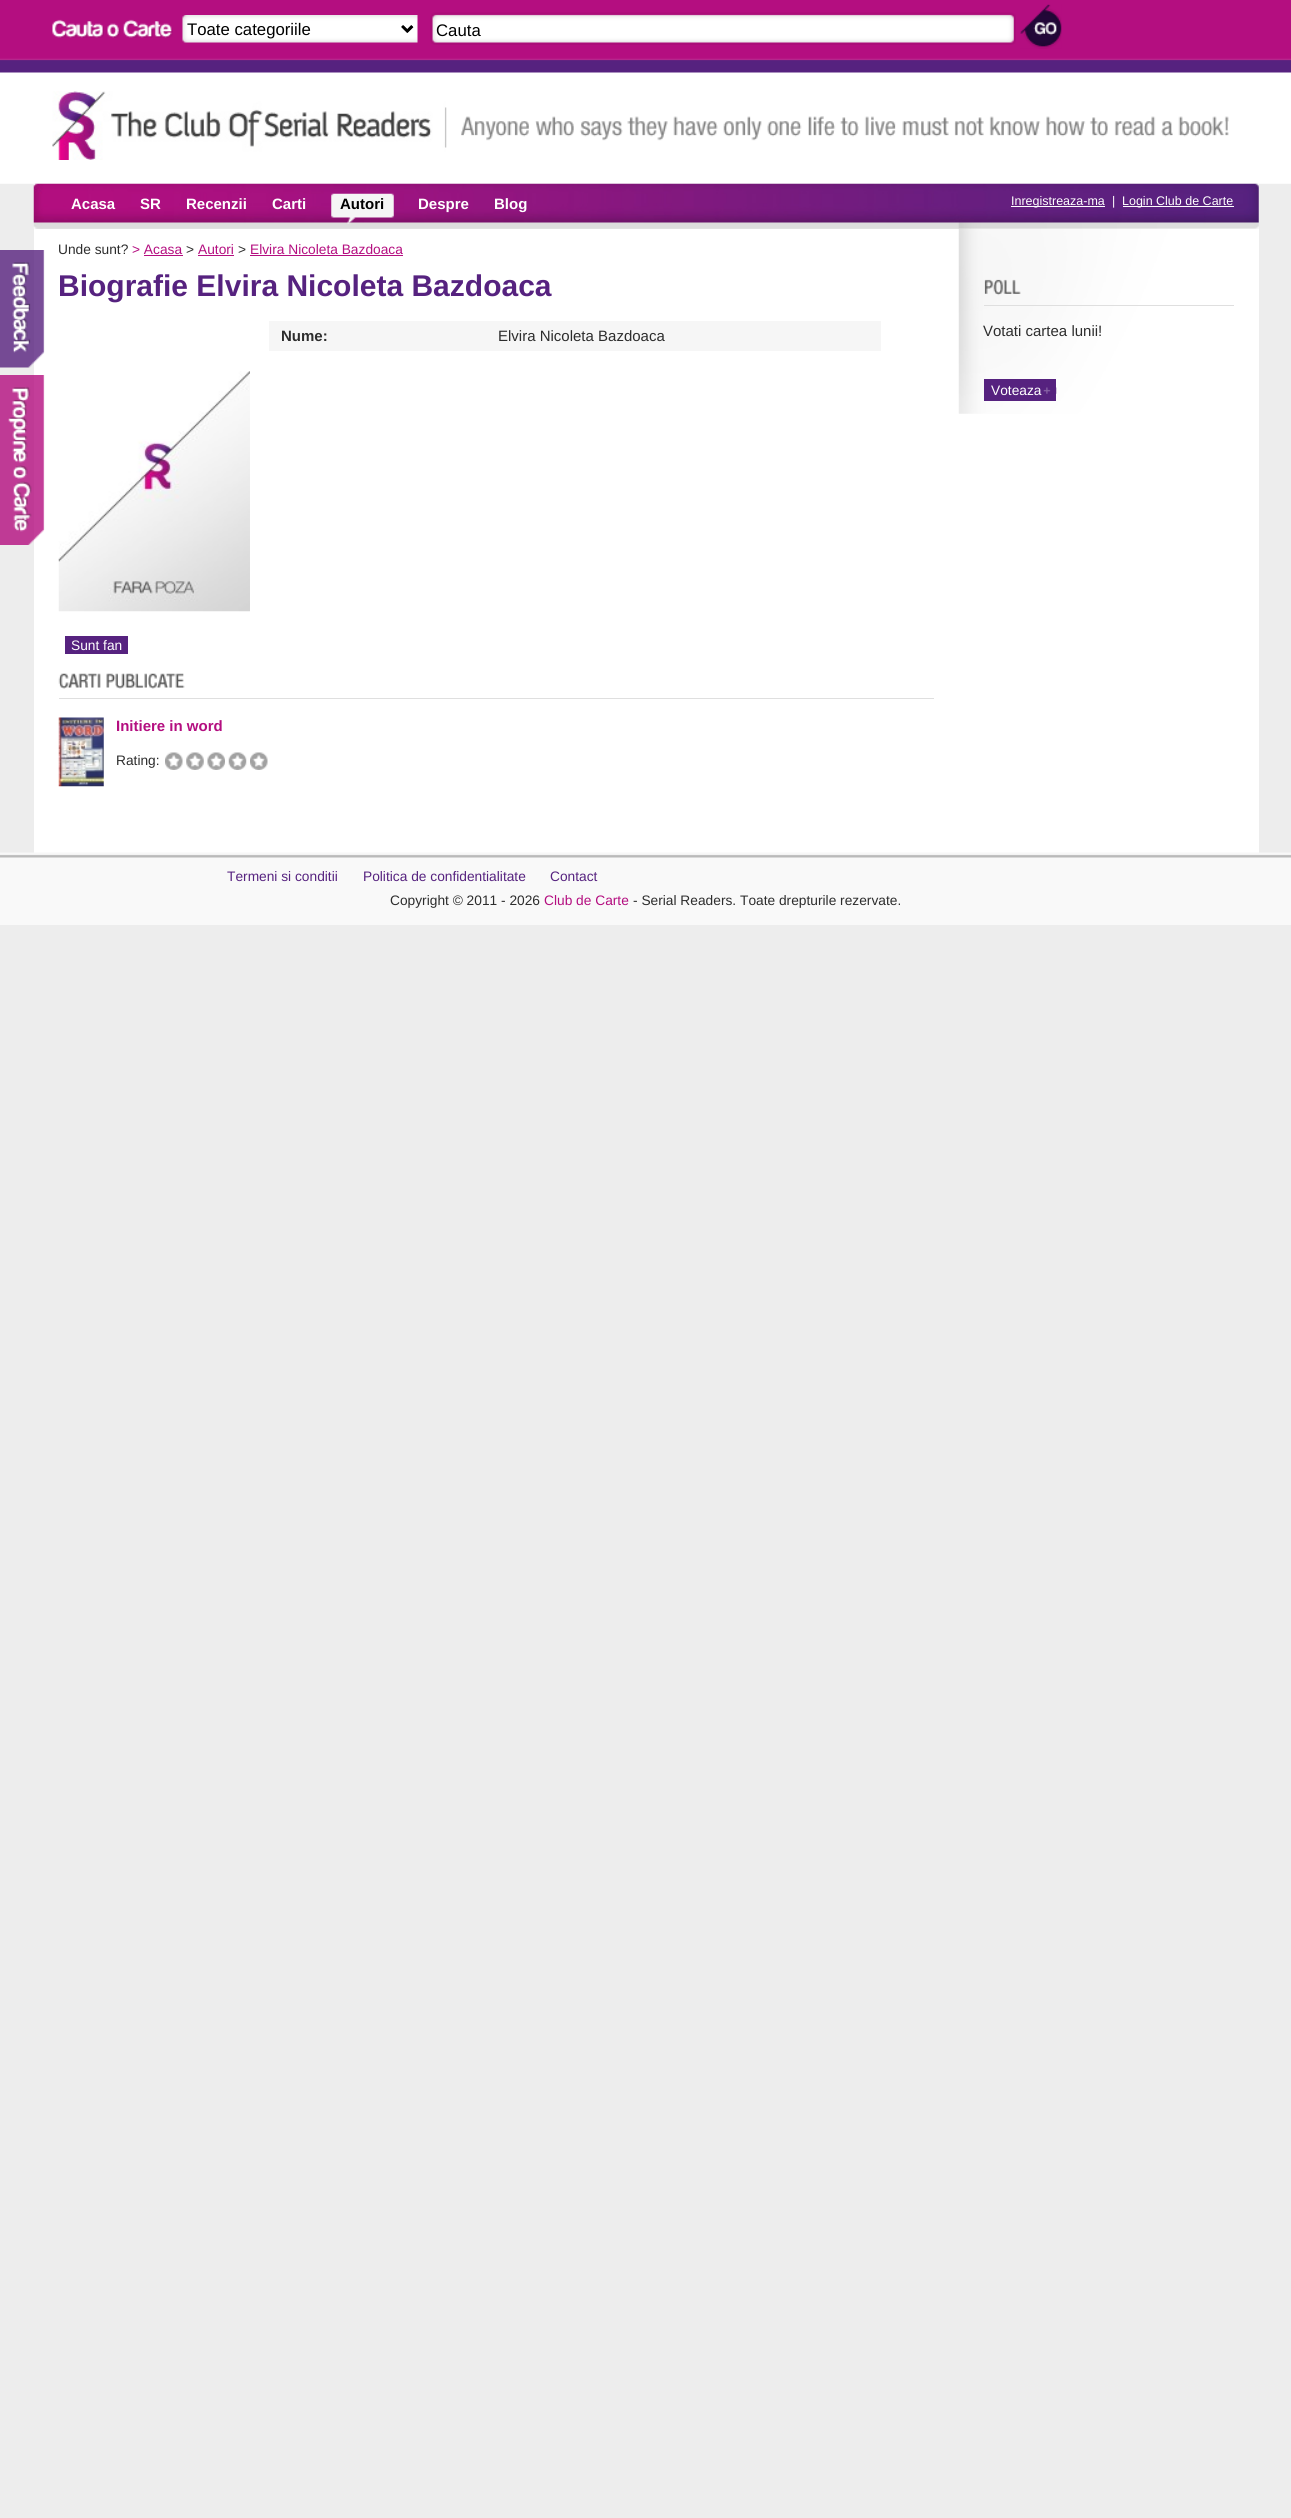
import math
import cairo


def paste(ctx, path, x, y, w, h):
	ctx.save()
	ctx.set_source_surface(cairo.ImageSurface.create_from_png(path), x, y)
	ctx.rectangle(x, y, w, h)
	ctx.fill()
	ctx.restore()

def draw(ctx):
	ctx.set_source_rgb(0.929, 0.929, 0.929)
	ctx.paint()
	paste(ctx, 'media/1.png', 0, 0, 1291, 184)
	paste(ctx, 'media/2.png', 52, 19, 121, 19)
	paste(ctx, 'media/3.png', 182, 15, 236, 28)
	ctx.new_path()
	ctx.move_to(402, 26)
	ctx.line_to(407, 31)
	ctx.line_to(412, 26)
	ctx.set_source_rgb(0, 0, 0)
	ctx.set_line_width(2.5)
	ctx.stroke()
	ctx.select_font_face('Liberation Sans')
	ctx.set_font_size(16.75)
	ctx.move_to(187, 35)
	ctx.show_text('Toate categoriile')
	paste(ctx, 'media/4.png', 430, 12, 586, 33)
	ctx.move_to(436, 36)
	ctx.show_text('Cauta')
	paste(ctx, 'media/5.png', 1020, 4, 42, 45)
	paste(ctx, 'media/6.png', 52, 91, 395, 69)
	paste(ctx, 'media/7.png', 461, 116, 768, 25)
	paste(ctx, 'media/8.png', 33, 183, 1226, 46)
	ctx.select_font_face('Liberation Sans', cairo.FONT_SLANT_NORMAL, cairo.FONT_WEIGHT_BOLD)
	ctx.set_font_size(15)
	ctx.set_source_rgb(1, 1, 1)
	for x, y, s in [
		(71, 209, 'Acasa'),
		(140, 209, 'SR'),
		(186, 209, 'Recenzii'),
		(272, 209, 'Carti'),
	]:
		ctx.move_to(x, y)
		ctx.show_text(s)
	paste(ctx, 'media/9.png', 331, 193, 63, 31)
	ctx.set_source_rgb(0, 0, 0)
	ctx.move_to(340, 209)
	ctx.show_text('Autori')
	ctx.set_source_rgb(1, 1, 1)
	ctx.move_to(418, 209)
	ctx.show_text('Despre')
	ctx.move_to(494, 209)
	ctx.show_text('Blog')
	ctx.rectangle(1011, 206, 94, 1)
	ctx.fill()
	ctx.select_font_face('Liberation Sans')
	ctx.set_font_size(12.5)
	ctx.move_to(1011, 205)
	ctx.show_text('Inregistreaza-ma')
	ctx.move_to(1112, 205)
	ctx.show_text('|')
	ctx.rectangle(1123, 206, 111, 1)
	ctx.fill()
	ctx.move_to(1122, 205)
	ctx.show_text('Login Club de Carte')
	ctx.rectangle(34, 229, 1225, 624)
	ctx.fill()
	paste(ctx, 'media/10.png', 0, 250, 45, 118)
	ctx.set_font_size(13.75)
	ctx.set_source_rgb(0.176, 0.176, 0.176)
	ctx.move_to(58, 254)
	ctx.show_text('Unde sunt?')
	ctx.set_source_rgb(0.706, 0.055, 0.502)
	ctx.move_to(132, 254)
	ctx.show_text('> Acasa')
	ctx.set_source_rgb(0.176, 0.176, 0.176)
	ctx.move_to(186, 254)
	ctx.show_text('>')
	ctx.set_source_rgb(0.706, 0.055, 0.502)
	ctx.move_to(198, 254)
	ctx.show_text('Autori')
	ctx.rectangle(198, 255, 36, 1)
	ctx.fill()
	ctx.set_source_rgb(0.176, 0.176, 0.176)
	ctx.move_to(238, 254)
	ctx.show_text('>')
	ctx.set_source_rgb(0.706, 0.055, 0.502)
	ctx.move_to(250, 254)
	ctx.show_text('Elvira Nicoleta Bazdoaca')
	ctx.rectangle(250, 255, 153, 1)
	ctx.fill()
	ctx.rectangle(144, 255, 39, 1)
	ctx.fill()
	ctx.select_font_face('Liberation Sans', cairo.FONT_SLANT_NORMAL, cairo.FONT_WEIGHT_BOLD)
	ctx.set_font_size(30)
	ctx.set_source_rgb(0.337, 0.133, 0.498)
	ctx.move_to(58, 296)
	ctx.show_text('Biografie Elvira Nicoleta Bazdoaca')
	ctx.set_source_rgb(0.961, 0.961, 0.961)
	ctx.rectangle(269, 321, 612, 30)
	ctx.fill()
	ctx.set_font_size(15)
	ctx.set_source_rgb(0.176, 0.176, 0.176)
	ctx.move_to(281, 341)
	ctx.show_text('Nume:')
	ctx.select_font_face('Liberation Sans')
	ctx.move_to(498, 341)
	ctx.show_text('Elvira Nicoleta Bazdoaca')
	paste(ctx, 'media/11.png', 58, 371, 192, 241)
	ctx.set_source_rgb(0.337, 0.133, 0.498)
	ctx.rectangle(65, 636, 63, 18)
	ctx.fill()
	ctx.set_font_size(13.75)
	ctx.set_source_rgb(1, 1, 1)
	ctx.move_to(71, 650)
	ctx.show_text('Sunt fan')
	paste(ctx, 'media/12.png', 58, 673, 127, 16)
	ctx.set_source_rgb(0.875, 0.875, 0.875)
	ctx.rectangle(59, 698, 875, 1)
	ctx.fill()
	paste(ctx, 'media/13.png', 58, 717, 46, 70)
	ctx.select_font_face('Liberation Sans', cairo.FONT_SLANT_NORMAL, cairo.FONT_WEIGHT_BOLD)
	ctx.set_font_size(15)
	ctx.set_source_rgb(0.706, 0.055, 0.502)
	ctx.move_to(116, 731)
	ctx.show_text('Initiere in word')
	ctx.select_font_face('Liberation Sans')
	ctx.set_font_size(13.75)
	ctx.set_source_rgb(0.176, 0.176, 0.176)
	ctx.move_to(116, 765)
	ctx.show_text('Rating:')
	paste(ctx, 'media/14.png', 165, 752, 18, 18)
	paste(ctx, 'media/15.png', 186, 752, 18, 18)
	paste(ctx, 'media/16.png', 207, 752, 18, 18)
	paste(ctx, 'media/17.png', 228, 752, 19, 18)
	paste(ctx, 'media/14.png', 250, 752, 18, 18)
	paste(ctx, 'media/18.png', 958, 228, 299, 186)
	paste(ctx, 'media/19.png', 984, 279, 37, 17)
	ctx.set_source_rgb(0.875, 0.875, 0.875)
	ctx.rectangle(984, 305, 250, 1)
	ctx.fill()
	ctx.set_font_size(15)
	ctx.set_source_rgb(0.176, 0.176, 0.176)
	ctx.move_to(983, 336)
	ctx.show_text('Votati cartea lunii!')
	ctx.set_source_rgb(0.337, 0.133, 0.498)
	ctx.rectangle(984, 379, 72, 22)
	ctx.fill()
	paste(ctx, 'media/20.png', 1043, 387, 14, 7)
	ctx.set_font_size(13.75)
	ctx.set_source_rgb(1, 1, 1)
	ctx.move_to(991, 395)
	ctx.show_text('Voteaza')
	paste(ctx, 'media/21.png', 0, 375, 45, 170)
	ctx.set_source_rgb(0.973, 0.973, 0.973)
	ctx.rectangle(0, 857, 1291, 68)
	ctx.fill()
	paste(ctx, 'media/22.png', 0, 852, 1291, 6)
	ctx.set_source_rgb(0.337, 0.133, 0.498)
	for x, y, s in [
		(227, 881, 'Termeni si conditii'),
		(363, 881, 'Politica de confidentialitate'),
		(550, 881, 'Contact'),
	]:
		ctx.move_to(x, y)
		ctx.show_text(s)
	ctx.set_source_rgb(0.176, 0.176, 0.176)
	ctx.move_to(390, 905)
	ctx.show_text('Copyright © 2011 - 2026')
	ctx.set_source_rgb(0.706, 0.055, 0.502)
	ctx.move_to(544, 905)
	ctx.show_text('Club de Carte')
	ctx.set_source_rgb(0.176, 0.176, 0.176)
	ctx.move_to(633, 905)
	ctx.show_text('- Serial Readers. Toate drepturile rezervate.')


surface = cairo.ImageSurface(cairo.FORMAT_RGB24, 1291, 2518)
ctx = cairo.Context(surface)
options = cairo.FontOptions()
options.set_hint_metrics(cairo.HINT_METRICS_OFF)
options.set_hint_style(cairo.HINT_STYLE_NONE)
ctx.set_font_options(options)
ctx.set_miter_limit(4)
draw(ctx)
surface.write_to_png('image.png')
